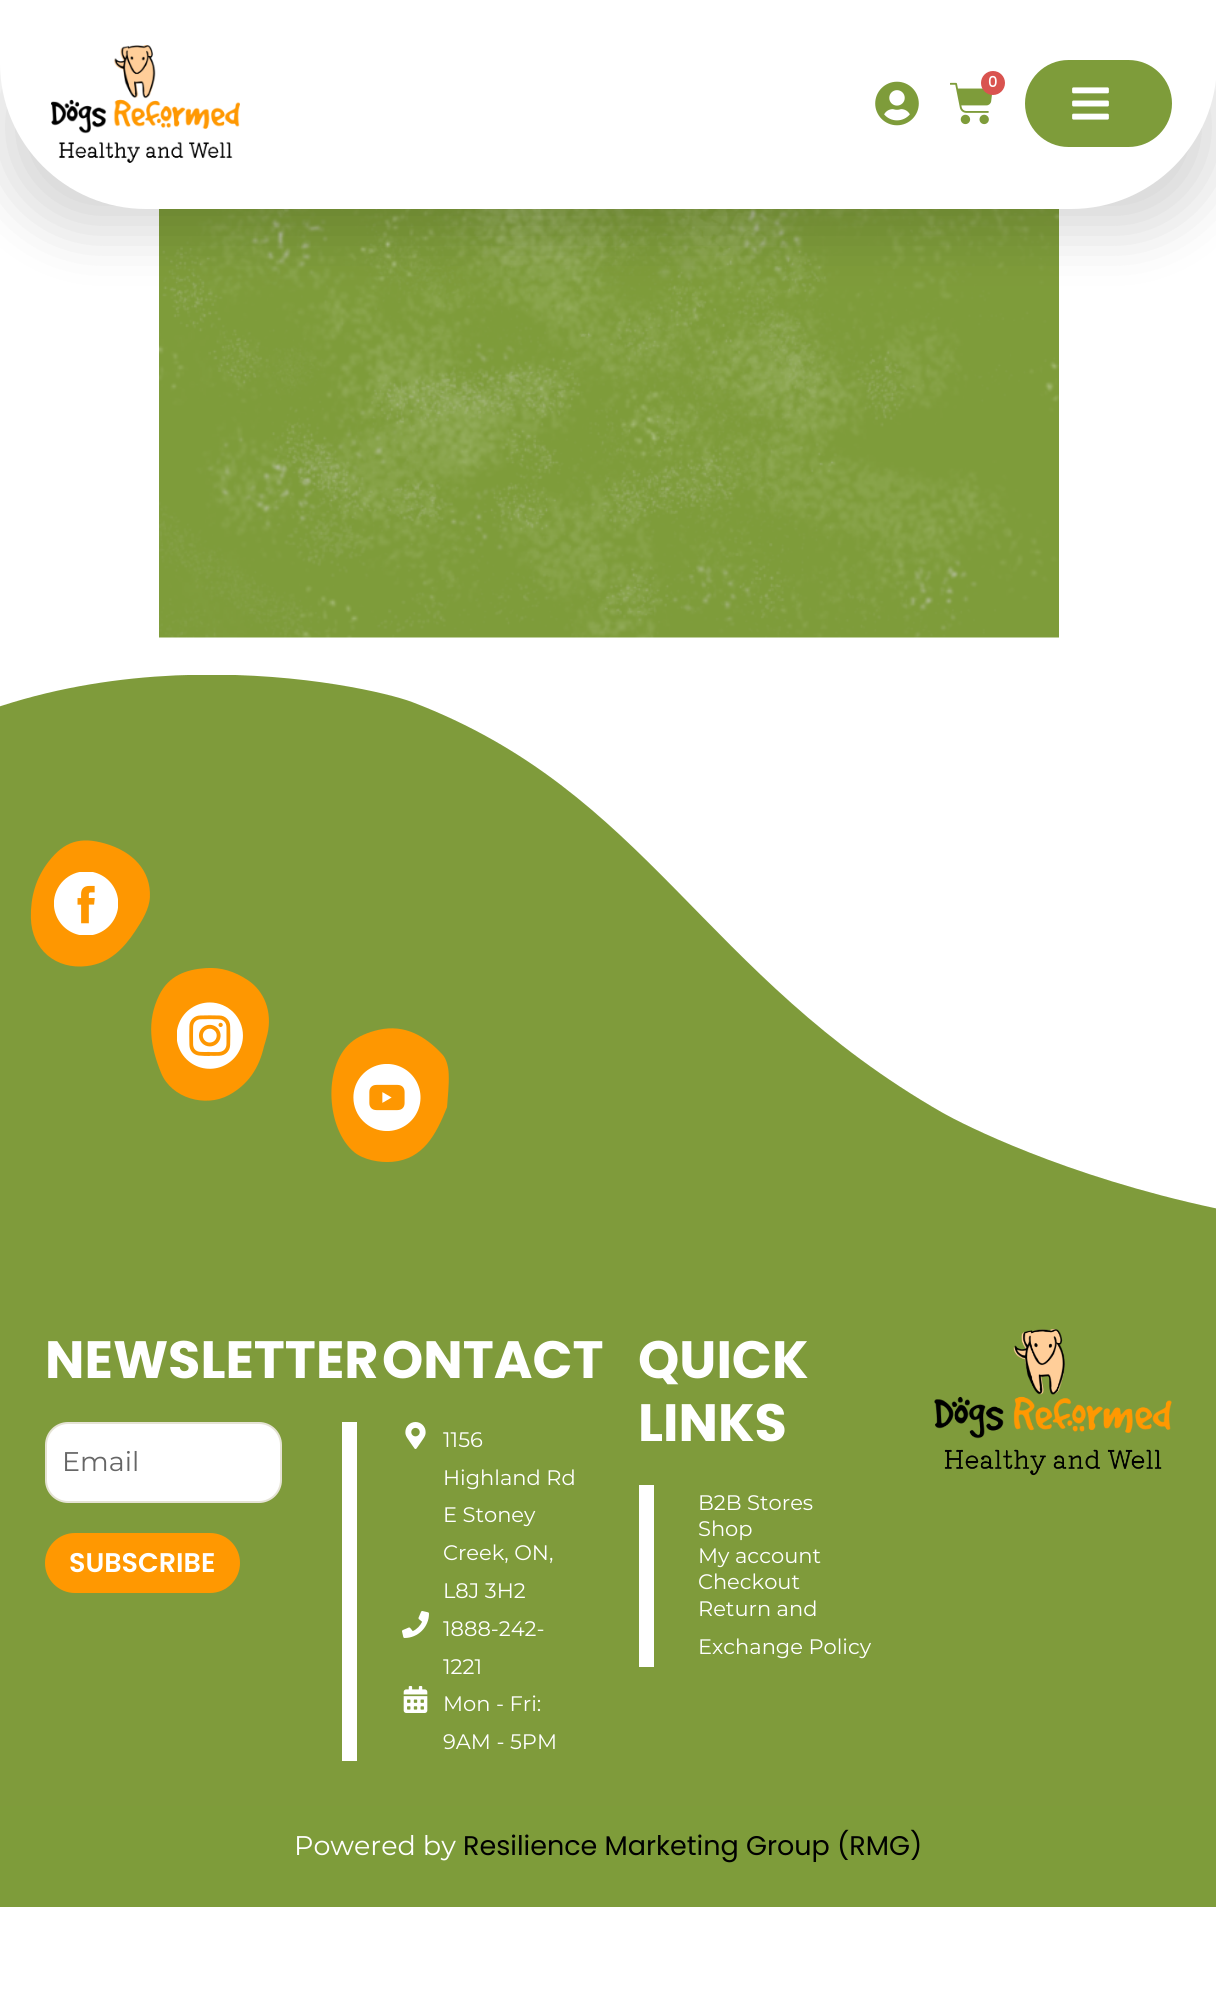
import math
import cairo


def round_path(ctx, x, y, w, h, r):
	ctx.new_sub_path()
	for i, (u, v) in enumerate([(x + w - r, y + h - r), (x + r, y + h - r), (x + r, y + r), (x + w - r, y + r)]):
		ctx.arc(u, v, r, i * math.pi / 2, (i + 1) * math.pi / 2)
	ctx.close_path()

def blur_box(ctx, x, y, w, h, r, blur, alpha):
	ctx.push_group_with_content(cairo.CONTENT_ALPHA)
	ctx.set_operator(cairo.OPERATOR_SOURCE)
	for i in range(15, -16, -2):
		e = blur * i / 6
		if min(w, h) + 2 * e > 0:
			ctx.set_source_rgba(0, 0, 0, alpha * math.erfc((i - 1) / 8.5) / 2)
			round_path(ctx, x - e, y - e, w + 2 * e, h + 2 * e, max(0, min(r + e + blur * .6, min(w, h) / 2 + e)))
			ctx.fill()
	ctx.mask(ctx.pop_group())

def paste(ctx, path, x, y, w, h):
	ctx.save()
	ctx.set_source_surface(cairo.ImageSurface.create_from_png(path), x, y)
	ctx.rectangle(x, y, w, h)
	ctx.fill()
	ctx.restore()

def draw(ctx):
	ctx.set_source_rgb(1, 1, 1)
	ctx.paint()
	paste(ctx, 'media/5.png', 159, 209, 900, 429)
	ctx.set_source_rgb(0, 0, 0)
	blur_box(ctx, 0, 23, 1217, 208, 146, 30, 0.16)
	ctx.set_source_rgb(1, 1, 1)
	ctx.new_path()
	ctx.move_to(0, 0)
	ctx.line_to(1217, 0)
	ctx.line_to(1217, 63)
	ctx.curve_to(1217, 143.5, 1151.5, 209, 1071, 209)
	ctx.line_to(146, 209)
	ctx.curve_to(65.5, 209, 0, 143.5, 0, 63)
	ctx.close_path()
	ctx.fill()
	paste(ctx, 'media/1.png', 51, 45, 189, 118)
	paste(ctx, 'media/2.png', 875, 81, 44, 45)
	paste(ctx, 'media/3.png', 950, 82, 42, 43)
	ctx.set_source_rgb(0.851, 0.325, 0.31)
	ctx.arc(993, 83, 12, 0, 2 * math.pi)
	ctx.fill()
	ctx.select_font_face('Poppins Medium')
	ctx.set_font_size(15)
	ctx.set_source_rgb(1, 1, 1)
	ctx.move_to(988, 87)
	ctx.show_text('0')
	ctx.set_source_rgb(0.494, 0.612, 0.227)
	round_path(ctx, 1025, 60, 147, 87, 43.5)
	ctx.fill()
	paste(ctx, 'media/4.png', 1072, 87, 37, 33)
	ctx.save()
	ctx.rectangle(0, 675, 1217, 1131)
	ctx.clip()
	ctx.set_source_rgb(0.498, 0.608, 0.231)
	ctx.new_path()
	ctx.move_to(-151, 784)
	ctx.curve_to(69, 619, 367, 685, 412, 702)
	ctx.curve_to(648, 792, 702, 975, 943, 1113)
	ctx.curve_to(982, 1135, 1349, 1321, 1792, 1186)
	ctx.curve_to(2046, 1108, 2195, 1019, 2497, 997)
	ctx.curve_to(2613, 988, 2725, 980, 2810, 1051)
	ctx.curve_to(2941, 1160, 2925, 1384, 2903, 1720)
	ctx.curve_to(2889, 1915, 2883, 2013, 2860, 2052)
	ctx.curve_to(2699, 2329, 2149, 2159, 904, 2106)
	ctx.curve_to(274, 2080, 105, 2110, -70, 1948)
	ctx.curve_to(-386, 1656, -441, 1001, -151, 784)
	ctx.fill()
	ctx.restore()
	paste(ctx, 'media/6.png', 30, 840, 120, 127)
	paste(ctx, 'media/7.png', 151, 968, 118, 133)
	paste(ctx, 'media/8.png', 331, 1028, 118, 134)
	ctx.select_font_face('Poppins', cairo.FONT_SLANT_NORMAL, cairo.FONT_WEIGHT_BOLD)
	ctx.set_font_size(52.5)
	ctx.set_source_rgb(1, 1, 1)
	ctx.move_to(45, 1378)
	ctx.show_text('NEWSLETTER')
	round_path(ctx, 46, 1423, 235, 79, 22)
	ctx.fill_preserve()
	ctx.set_source_rgb(0.898, 0.89, 0.835)
	ctx.stroke()
	ctx.select_font_face('Montserrat')
	ctx.set_font_size(27)
	ctx.set_source_rgb(0.4, 0.4, 0.4)
	ctx.move_to(62, 1471)
	ctx.show_text('Email')
	ctx.set_source_rgb(1, 0.596, 0.004)
	round_path(ctx, 45, 1533, 195, 60, 30)
	ctx.fill()
	ctx.select_font_face('Poppins SemiBold')
	ctx.set_source_rgb(1, 1, 1)
	ctx.move_to(69, 1572)
	ctx.show_text('SUBSCRIBE')
	ctx.select_font_face('Poppins', cairo.FONT_SLANT_NORMAL, cairo.FONT_WEIGHT_BOLD)
	ctx.set_font_size(52.5)
	ctx.move_to(382, 1378)
	ctx.show_text('ONTACT')
	ctx.rectangle(342, 1422, 15, 339)
	ctx.fill()
	paste(ctx, 'media/9.png', 405, 1422, 21, 27)
	ctx.select_font_face('Montserrat')
	ctx.set_font_size(21)
	for x, y, s in [
		(443, 1447, '1156'),
		(443, 1485, 'Highland Rd'),
		(443, 1522, 'E Stoney'),
		(443, 1560, 'Creek, ON,'),
		(443, 1598, 'L8J 3H2'),
	]:
		ctx.move_to(x, y)
		ctx.show_text(s)
	paste(ctx, 'media/10.png', 402, 1611, 27, 27)
	ctx.move_to(443, 1636)
	ctx.show_text('1888-242-')
	ctx.move_to(443, 1674)
	ctx.show_text('1221')
	paste(ctx, 'media/11.png', 403, 1686, 25, 27)
	ctx.move_to(443, 1711)
	ctx.show_text('Mon - Fri:')
	ctx.move_to(443, 1749)
	ctx.show_text('9AM - 5PM')
	ctx.select_font_face('Poppins', cairo.FONT_SLANT_NORMAL, cairo.FONT_WEIGHT_BOLD)
	ctx.set_font_size(52.5)
	ctx.move_to(638, 1378)
	ctx.show_text('QUICK')
	ctx.move_to(638, 1441)
	ctx.show_text('LINKS')
	ctx.rectangle(639, 1485, 15, 182)
	ctx.fill()
	ctx.select_font_face('Montserrat')
	ctx.set_font_size(21)
	for x, y, s in [
		(698, 1510, 'B2B Stores'),
		(698, 1536, 'Shop'),
		(698, 1563, 'My account'),
		(698, 1589, 'Checkout'),
		(698, 1616, 'Return and'),
		(698, 1654, 'Exchange Policy'),
	]:
		ctx.move_to(x, y)
		ctx.show_text(s)
	paste(ctx, 'media/12.png', 934, 1329, 238, 147)
	ctx.set_source_rgb(0.494, 0.612, 0.227)
	ctx.rectangle(0, 1806, 1216, 101)
	ctx.fill()
	ctx.set_font_size(27)
	ctx.set_source_rgb(1, 1, 1)
	ctx.move_to(294, 1855)
	ctx.show_text('Powered by')
	ctx.select_font_face('Poppins')
	ctx.set_source_rgb(0, 0, 0)
	ctx.move_to(463, 1855)
	ctx.show_text('Resilience Marketing Group (RMG)')


surface = cairo.ImageSurface(cairo.FORMAT_RGB24, 1216, 2010)
ctx = cairo.Context(surface)
options = cairo.FontOptions()
options.set_hint_metrics(cairo.HINT_METRICS_OFF)
options.set_hint_style(cairo.HINT_STYLE_NONE)
ctx.set_font_options(options)
ctx.set_miter_limit(4)
draw(ctx)
surface.write_to_png('image.png')
